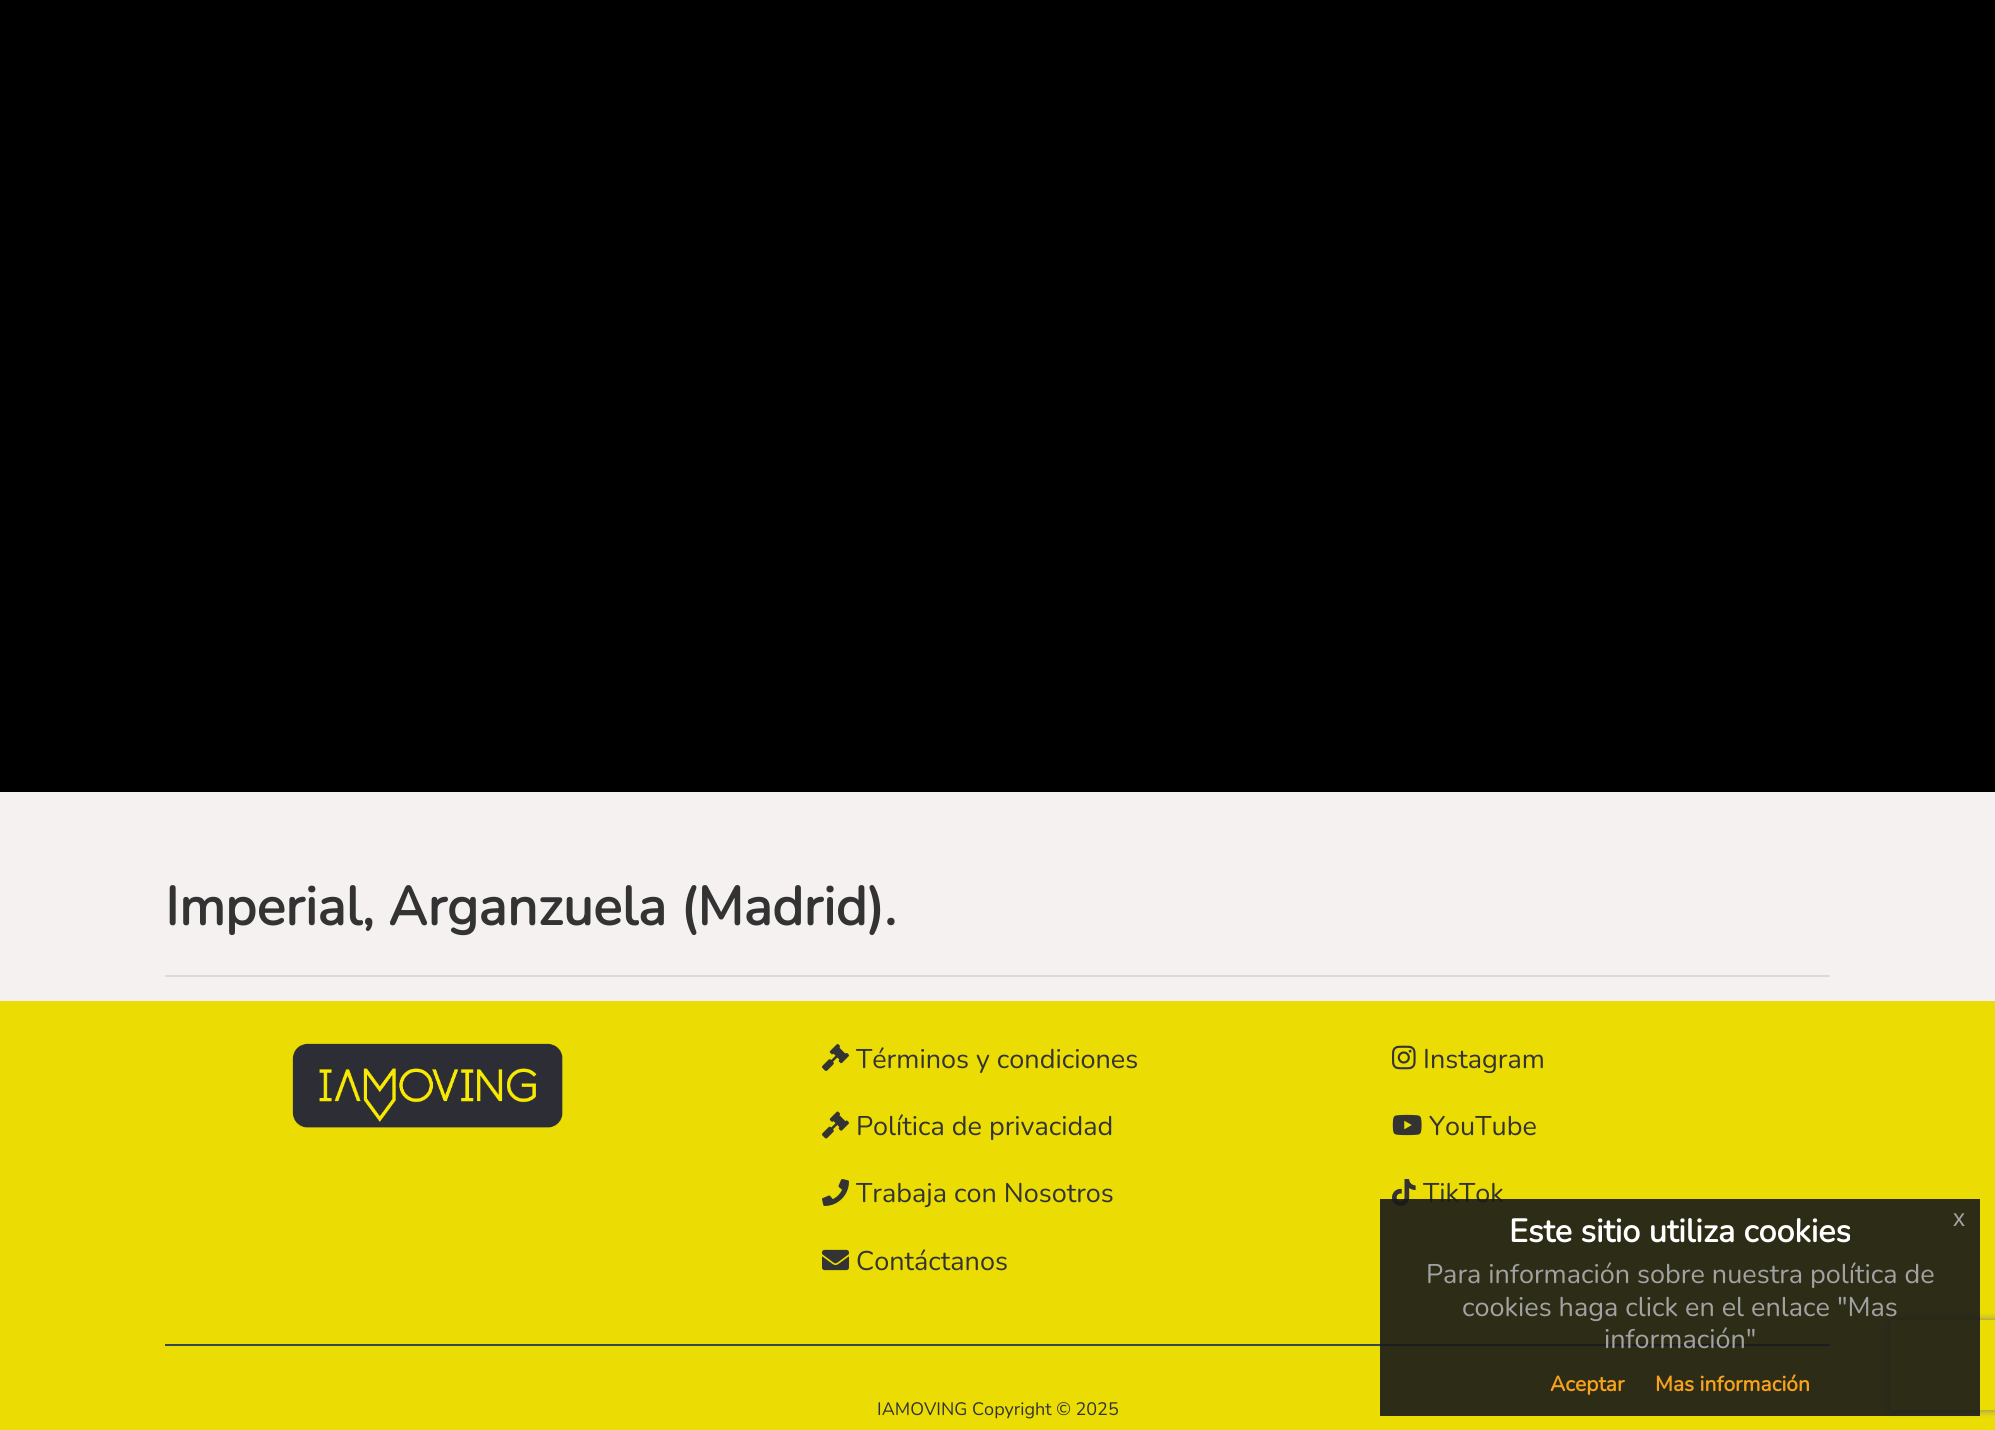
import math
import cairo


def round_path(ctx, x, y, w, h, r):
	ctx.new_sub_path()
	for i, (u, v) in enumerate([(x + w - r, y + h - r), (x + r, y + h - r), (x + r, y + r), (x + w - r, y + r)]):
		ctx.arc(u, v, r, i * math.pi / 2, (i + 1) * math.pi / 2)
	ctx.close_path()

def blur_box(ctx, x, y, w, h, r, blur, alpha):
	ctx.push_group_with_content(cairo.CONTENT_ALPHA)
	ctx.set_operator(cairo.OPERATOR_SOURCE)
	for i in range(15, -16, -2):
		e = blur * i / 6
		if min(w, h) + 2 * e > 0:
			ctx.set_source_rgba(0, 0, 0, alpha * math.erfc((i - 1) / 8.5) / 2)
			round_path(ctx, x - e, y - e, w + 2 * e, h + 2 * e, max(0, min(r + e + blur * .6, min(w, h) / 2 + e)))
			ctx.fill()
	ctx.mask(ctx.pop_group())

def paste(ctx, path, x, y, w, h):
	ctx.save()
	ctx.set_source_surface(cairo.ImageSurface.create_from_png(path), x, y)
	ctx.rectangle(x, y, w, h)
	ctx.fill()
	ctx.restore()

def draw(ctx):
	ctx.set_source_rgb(0.961, 0.945, 0.945)
	ctx.paint()
	ctx.set_source_rgb(0, 0, 0)
	ctx.rectangle(0, 0, 1995, 792)
	ctx.fill()
	ctx.select_font_face('Nunito', cairo.FONT_SLANT_NORMAL, cairo.FONT_WEIGHT_BOLD)
	ctx.set_font_size(54)
	ctx.set_source_rgb(0.2, 0.2, 0.2)
	ctx.move_to(165, 925)
	ctx.show_text('Imperial, Arganzuela (Madrid).')
	ctx.set_source_rgb(0.867, 0.851, 0.851)
	ctx.rectangle(165, 975, 1665, 2)
	ctx.fill()
	ctx.set_source_rgb(0.918, 0.867, 0.012)
	ctx.rectangle(0, 1001, 1995, 429)
	ctx.fill()
	paste(ctx, 'media/1.png', 292, 1043, 271, 85)
	paste(ctx, 'media/2.png', 822, 1044, 27, 27)
	ctx.select_font_face('Nunito ExtraLight')
	ctx.set_font_size(27)
	ctx.set_source_rgb(0.2, 0.2, 0.2)
	ctx.move_to(856, 1068)
	ctx.show_text('Términos y condiciones')
	paste(ctx, 'media/3.png', 822, 1111, 27, 28)
	ctx.move_to(856, 1135)
	ctx.show_text('Política de privacidad')
	paste(ctx, 'media/4.png', 822, 1179, 27, 27)
	ctx.move_to(856, 1202)
	ctx.show_text('Trabaja con Nosotros')
	paste(ctx, 'media/5.png', 822, 1249, 27, 22)
	ctx.move_to(856, 1270)
	ctx.show_text('Contáctanos')
	paste(ctx, 'media/6.png', 1392, 1045, 24, 25)
	ctx.move_to(1423, 1068)
	ctx.show_text('Instagram')
	paste(ctx, 'media/7.png', 1392, 1114, 30, 22)
	ctx.move_to(1429, 1135)
	ctx.show_text('YouTube')
	paste(ctx, 'media/8.png', 1392, 1179, 24, 27)
	ctx.move_to(1423, 1202)
	ctx.show_text('TikTok')
	ctx.set_source_rgb(0.196, 0.29, 0.306)
	ctx.rectangle(165, 1344, 1665, 2)
	ctx.fill()
	ctx.set_font_size(18)
	ctx.set_source_rgb(0.2, 0.2, 0.2)
	ctx.move_to(877, 1415)
	ctx.show_text('IAMOVING Copyright © 2025')
	ctx.save()
	ctx.set_fill_rule(cairo.FILL_RULE_EVEN_ODD)
	ctx.new_path()
	ctx.move_to(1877, 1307)
	ctx.line_to(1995, 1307)
	ctx.line_to(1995, 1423)
	ctx.line_to(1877, 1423)
	ctx.close_path()
	ctx.move_to(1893, 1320)
	ctx.line_to(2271, 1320)
	ctx.curve_to(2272.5, 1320, 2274, 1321.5, 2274, 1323)
	ctx.line_to(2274, 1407)
	ctx.curve_to(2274, 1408.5, 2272.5, 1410, 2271, 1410)
	ctx.line_to(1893, 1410)
	ctx.curve_to(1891.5, 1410, 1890, 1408.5, 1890, 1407)
	ctx.line_to(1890, 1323)
	ctx.curve_to(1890, 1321.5, 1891.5, 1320, 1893, 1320)
	ctx.close_path()
	ctx.clip()
	ctx.set_source_rgb(0.502, 0.502, 0.502)
	blur_box(ctx, 1890, 1320, 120, 90, 3, 4, 1)
	ctx.restore()
	ctx.set_source_rgba(0.098, 0.098, 0.098, 0.9)
	ctx.rectangle(1380, 1199, 600, 217)
	ctx.fill()
	ctx.select_font_face('Nunito', cairo.FONT_SLANT_NORMAL, cairo.FONT_WEIGHT_BOLD)
	ctx.set_font_size(32.4)
	ctx.set_source_rgb(1, 1, 1)
	ctx.move_to(1509, 1242)
	ctx.show_text('Este sitio utiliza cookies')
	ctx.select_font_face('Liberation Sans')
	ctx.set_font_size(24)
	ctx.set_source_rgb(0.635, 0.635, 0.635)
	ctx.move_to(1953, 1226)
	ctx.show_text('x')
	ctx.select_font_face('Nunito ExtraLight')
	ctx.set_font_size(27)
	for x, y, s in [
		(1426, 1283, 'Para información sobre nuestra política de'),
		(1462, 1316, 'cookies haga click en el enlace "Mas'),
		(1604, 1348, 'información"'),
	]:
		ctx.move_to(x, y)
		ctx.show_text(s)
	ctx.select_font_face('Nunito', cairo.FONT_SLANT_NORMAL, cairo.FONT_WEIGHT_BOLD)
	ctx.set_font_size(21)
	ctx.set_source_rgb(0.965, 0.635, 0.114)
	ctx.move_to(1550, 1391)
	ctx.show_text('Aceptar')
	ctx.move_to(1655, 1391)
	ctx.show_text('Mas información')


surface = cairo.ImageSurface(cairo.FORMAT_RGB24, 1995, 1430)
ctx = cairo.Context(surface)
options = cairo.FontOptions()
options.set_hint_metrics(cairo.HINT_METRICS_OFF)
options.set_hint_style(cairo.HINT_STYLE_NONE)
ctx.set_font_options(options)
ctx.set_miter_limit(4)
draw(ctx)
surface.write_to_png('image.png')
